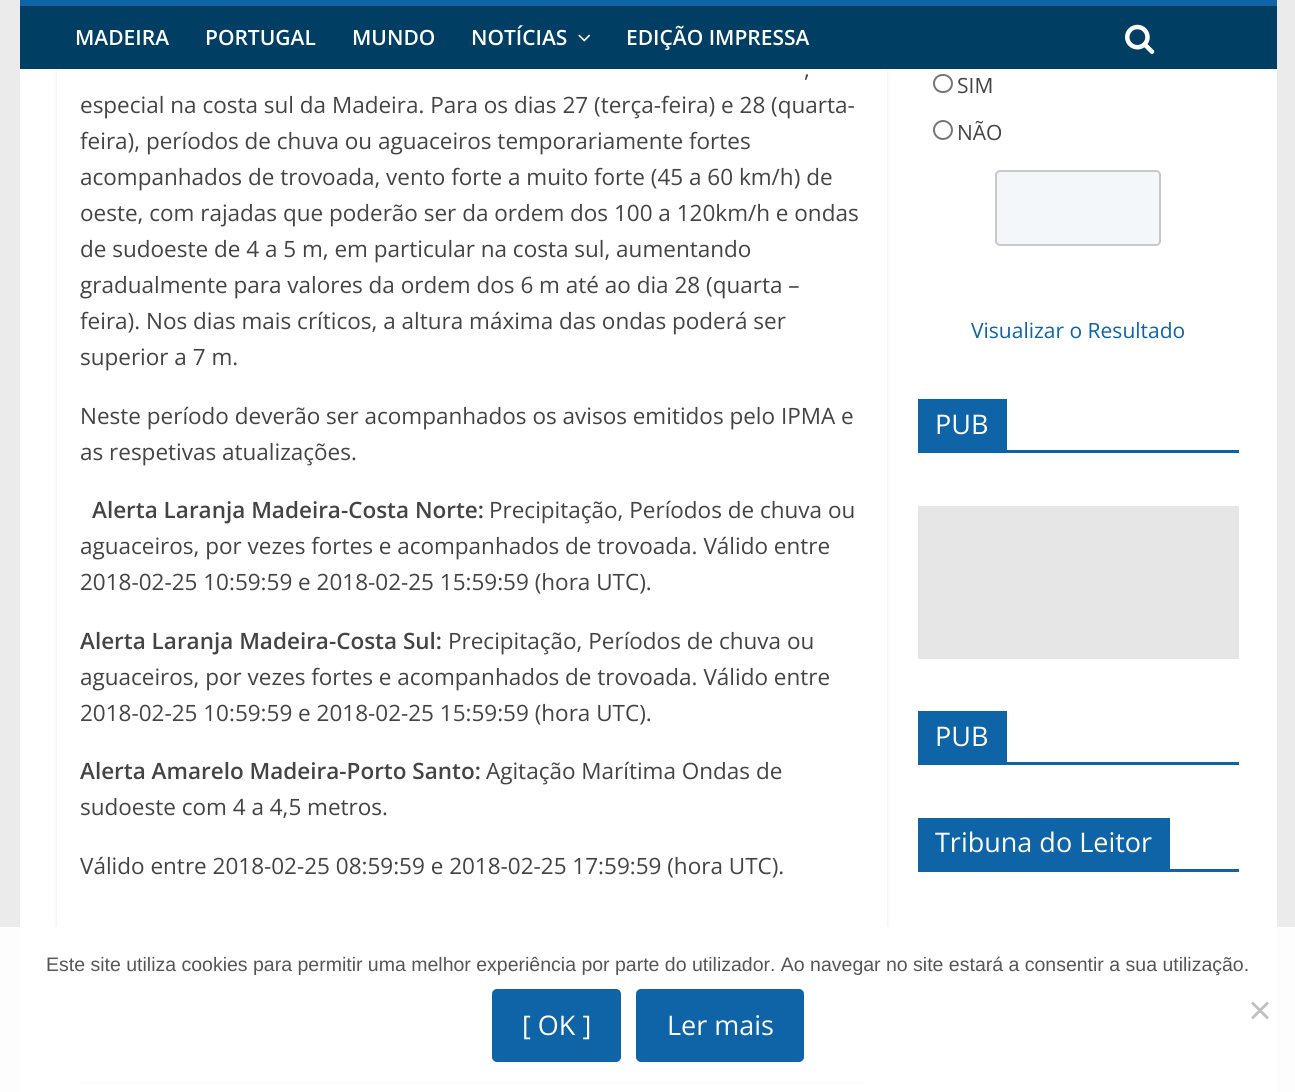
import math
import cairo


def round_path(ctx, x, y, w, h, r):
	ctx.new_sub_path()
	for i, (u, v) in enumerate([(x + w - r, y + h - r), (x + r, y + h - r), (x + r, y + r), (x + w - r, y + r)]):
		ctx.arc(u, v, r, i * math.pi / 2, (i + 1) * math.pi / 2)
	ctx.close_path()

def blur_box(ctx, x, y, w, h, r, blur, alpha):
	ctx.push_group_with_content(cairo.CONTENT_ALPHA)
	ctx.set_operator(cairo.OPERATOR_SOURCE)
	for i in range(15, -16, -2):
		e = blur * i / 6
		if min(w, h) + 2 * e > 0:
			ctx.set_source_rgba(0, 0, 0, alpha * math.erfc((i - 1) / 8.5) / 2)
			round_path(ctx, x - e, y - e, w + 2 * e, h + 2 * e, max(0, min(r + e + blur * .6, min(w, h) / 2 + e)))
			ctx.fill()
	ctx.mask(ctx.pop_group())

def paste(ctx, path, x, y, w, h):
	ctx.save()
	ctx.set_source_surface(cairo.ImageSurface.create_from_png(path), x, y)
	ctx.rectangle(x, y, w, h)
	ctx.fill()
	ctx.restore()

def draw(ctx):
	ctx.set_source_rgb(0.918, 0.918, 0.918)
	ctx.paint()
	ctx.set_source_rgb(1, 1, 1)
	ctx.rectangle(20, 69, 1257, 1023)
	ctx.fill()
	ctx.save()
	ctx.set_fill_rule(cairo.FILL_RULE_EVEN_ODD)
	ctx.new_path()
	ctx.move_to(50, 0)
	ctx.line_to(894, 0)
	ctx.line_to(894, 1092)
	ctx.line_to(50, 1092)
	ctx.close_path()
	ctx.move_to(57, -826)
	ctx.line_to(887, -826)
	ctx.line_to(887, 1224)
	ctx.line_to(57, 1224)
	ctx.close_path()
	ctx.clip()
	ctx.set_source_rgb(0, 0, 0)
	blur_box(ctx, 57, -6, 830, 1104, 0, 2, 0.1)
	ctx.restore()
	ctx.set_source_rgb(0, 0.247, 0.388)
	ctx.rectangle(20, 6, 1257, 63)
	ctx.fill()
	ctx.set_source_rgb(0.055, 0.392, 0.651)
	ctx.rectangle(20, 0, 1257, 6)
	ctx.fill()
	ctx.select_font_face('Open Sans SemiBold')
	ctx.set_font_size(21)
	ctx.set_source_rgb(1, 1, 1)
	for x, y, s in [
		(75, 45, 'MADEIRA'),
		(205, 45, 'PORTUGAL'),
		(352, 45, 'MUNDO'),
		(471, 45, 'NOTÍCIAS'),
	]:
		ctx.move_to(x, y)
		ctx.show_text(s)
	paste(ctx, 'media/1.png', 578, 34, 13, 8)
	ctx.move_to(626, 45)
	ctx.show_text('EDIÇÃO IMPRESSA')
	paste(ctx, 'media/2.png', 1125, 24, 30, 30)
	ctx.select_font_face('Open Sans')
	ctx.set_font_size(22.5)
	ctx.set_source_rgb(0.267, 0.267, 0.267)
	for x, y, s in [
		(804, 77, ','),
		(80, 113, 'especial na costa sul da Madeira. Para os dias 27 (terça-feira) e 28 (quarta-'),
		(80, 149, 'feira), períodos de chuva ou aguaceiros temporariamente fortes'),
		(80, 185, 'acompanhados de trovoada, vento forte a muito forte (45 a 60 km/h) de'),
		(80, 221, 'oeste, com rajadas que poderão ser da ordem dos 100 a 120km/h e ondas'),
		(80, 257, 'de sudoeste de 4 a 5 m, em particular na costa sul, aumentando'),
		(80, 293, 'gradualmente para valores da ordem dos 6 m até ao dia 28 (quarta –'),
		(80, 329, 'feira). Nos dias mais críticos, a altura máxima das ondas poderá ser'),
		(80, 365, 'superior a 7 m.'),
		(80, 424, 'Neste período deverão ser acompanhados os avisos emitidos pelo IPMA e'),
		(80, 460, 'as respetivas atualizações.'),
	]:
		ctx.move_to(x, y)
		ctx.show_text(s)
	ctx.select_font_face('Open Sans SemiBold')
	ctx.move_to(92, 518)
	ctx.show_text('Alerta Laranja Madeira-Costa Norte:')
	ctx.select_font_face('Open Sans')
	for x, y, s in [
		(489, 518, 'Precipitação, Períodos de chuva ou'),
		(80, 554, 'aguaceiros, por vezes fortes e acompanhados de trovoada. Válido entre'),
		(80, 590, '2018-02-25 10:59:59 e 2018-02-25 15:59:59 (hora UTC).'),
	]:
		ctx.move_to(x, y)
		ctx.show_text(s)
	ctx.select_font_face('Open Sans SemiBold')
	ctx.move_to(80, 649)
	ctx.show_text('Alerta Laranja Madeira-Costa Sul:')
	ctx.select_font_face('Open Sans')
	for x, y, s in [
		(448, 649, 'Precipitação, Períodos de chuva ou'),
		(80, 685, 'aguaceiros, por vezes fortes e acompanhados de trovoada. Válido entre'),
		(80, 721, '2018-02-25 10:59:59 e 2018-02-25 15:59:59 (hora UTC).'),
	]:
		ctx.move_to(x, y)
		ctx.show_text(s)
	ctx.select_font_face('Open Sans SemiBold')
	ctx.move_to(80, 779)
	ctx.show_text('Alerta Amarelo Madeira-Porto Santo:')
	ctx.select_font_face('Open Sans')
	for x, y, s in [
		(486, 779, 'Agitação Marítima Ondas de'),
		(80, 815, 'sudoeste com 4 a 4,5 metros.'),
		(80, 874, 'Válido entre 2018-02-25 08:59:59 e 2018-02-25 17:59:59 (hora UTC).'),
	]:
		ctx.move_to(x, y)
		ctx.show_text(s)
	ctx.set_source_rgb(0.918, 0.918, 0.918)
	ctx.rectangle(80, 1082, 784, 2)
	ctx.fill()
	round_path(ctx, 934, 75, 18, 17, 8.5)
	ctx.set_source_rgb(0.463, 0.463, 0.463)
	ctx.stroke()
	ctx.set_font_size(21)
	ctx.set_source_rgb(0.267, 0.267, 0.267)
	ctx.move_to(957, 93)
	ctx.show_text('SIM')
	ctx.new_path()
	ctx.arc(943, 130, 9, 0, 2 * math.pi)
	ctx.set_source_rgb(0.463, 0.463, 0.463)
	ctx.stroke()
	ctx.set_source_rgb(0.267, 0.267, 0.267)
	ctx.move_to(957, 140)
	ctx.show_text('NÃO')
	ctx.set_source_rgb(0.953, 0.965, 0.973)
	round_path(ctx, 996, 171, 164, 74, 4)
	ctx.fill_preserve()
	ctx.set_source_rgb(0.784, 0.784, 0.784)
	ctx.stroke()
	ctx.set_source_rgb(0.055, 0.392, 0.651)
	ctx.move_to(971, 338)
	ctx.show_text('Visualizar o Resultado')
	ctx.rectangle(918, 450, 321, 3)
	ctx.fill()
	ctx.rectangle(918, 399, 89, 51)
	ctx.fill()
	ctx.set_font_size(27)
	ctx.set_source_rgb(1, 1, 1)
	ctx.move_to(935, 434)
	ctx.show_text('PUB')
	ctx.set_source_rgb(0.902, 0.902, 0.902)
	ctx.rectangle(918, 506, 321, 153)
	ctx.fill()
	ctx.set_source_rgb(0.055, 0.392, 0.651)
	ctx.rectangle(918, 762, 321, 3)
	ctx.rectangle(918, 711, 89, 51)
	ctx.fill()
	ctx.set_source_rgb(1, 1, 1)
	ctx.move_to(935, 746)
	ctx.show_text('PUB')
	ctx.set_source_rgb(0.055, 0.392, 0.651)
	ctx.rectangle(918, 869, 321, 3)
	ctx.fill()
	ctx.rectangle(918, 818, 252, 51)
	ctx.fill()
	ctx.set_source_rgb(1, 1, 1)
	ctx.move_to(935, 852)
	ctx.show_text('Tribuna do Leitor')
	ctx.set_source_rgba(1, 1, 1, 0.9)
	ctx.rectangle(0, 927, 1295, 165)
	ctx.fill()
	ctx.select_font_face('Liberation Sans')
	ctx.set_font_size(19.5)
	ctx.set_source_rgb(0.337, 0.337, 0.337)
	ctx.move_to(46, 971)
	ctx.show_text('Este site utiliza cookies para permitir uma melhor experiência por parte do utilizador. Ao navegar no site estará a consentir a sua utilização.')
	ctx.set_source_rgb(0.753, 0.753, 0.753)
	ctx.new_path()
	ctx.move_to(1267, 1001.5)
	ctx.line_to(1269, 1003.5)
	ctx.line_to(1253, 1019.5)
	ctx.line_to(1251, 1017.5)
	ctx.close_path()
	ctx.fill()
	ctx.new_path()
	ctx.move_to(1251, 1003.5)
	ctx.line_to(1253, 1001.5)
	ctx.line_to(1269, 1017.5)
	ctx.line_to(1267, 1019.5)
	ctx.close_path()
	ctx.fill()
	ctx.set_source_rgb(0.055, 0.392, 0.651)
	round_path(ctx, 492, 989, 129, 73, 5)
	ctx.fill()
	ctx.select_font_face('Open Sans')
	ctx.set_font_size(27)
	ctx.set_source_rgb(1, 1, 1)
	ctx.move_to(522, 1035)
	ctx.show_text('[ OK ]')
	ctx.set_source_rgb(0.055, 0.392, 0.651)
	round_path(ctx, 636, 989, 168, 73, 5)
	ctx.fill()
	ctx.set_source_rgb(1, 1, 1)
	ctx.move_to(667, 1035)
	ctx.show_text('Ler mais')


surface = cairo.ImageSurface(cairo.FORMAT_RGB24, 1295, 1092)
ctx = cairo.Context(surface)
options = cairo.FontOptions()
options.set_hint_metrics(cairo.HINT_METRICS_OFF)
options.set_hint_style(cairo.HINT_STYLE_NONE)
ctx.set_font_options(options)
ctx.set_miter_limit(4)
draw(ctx)
surface.write_to_png('image.png')
